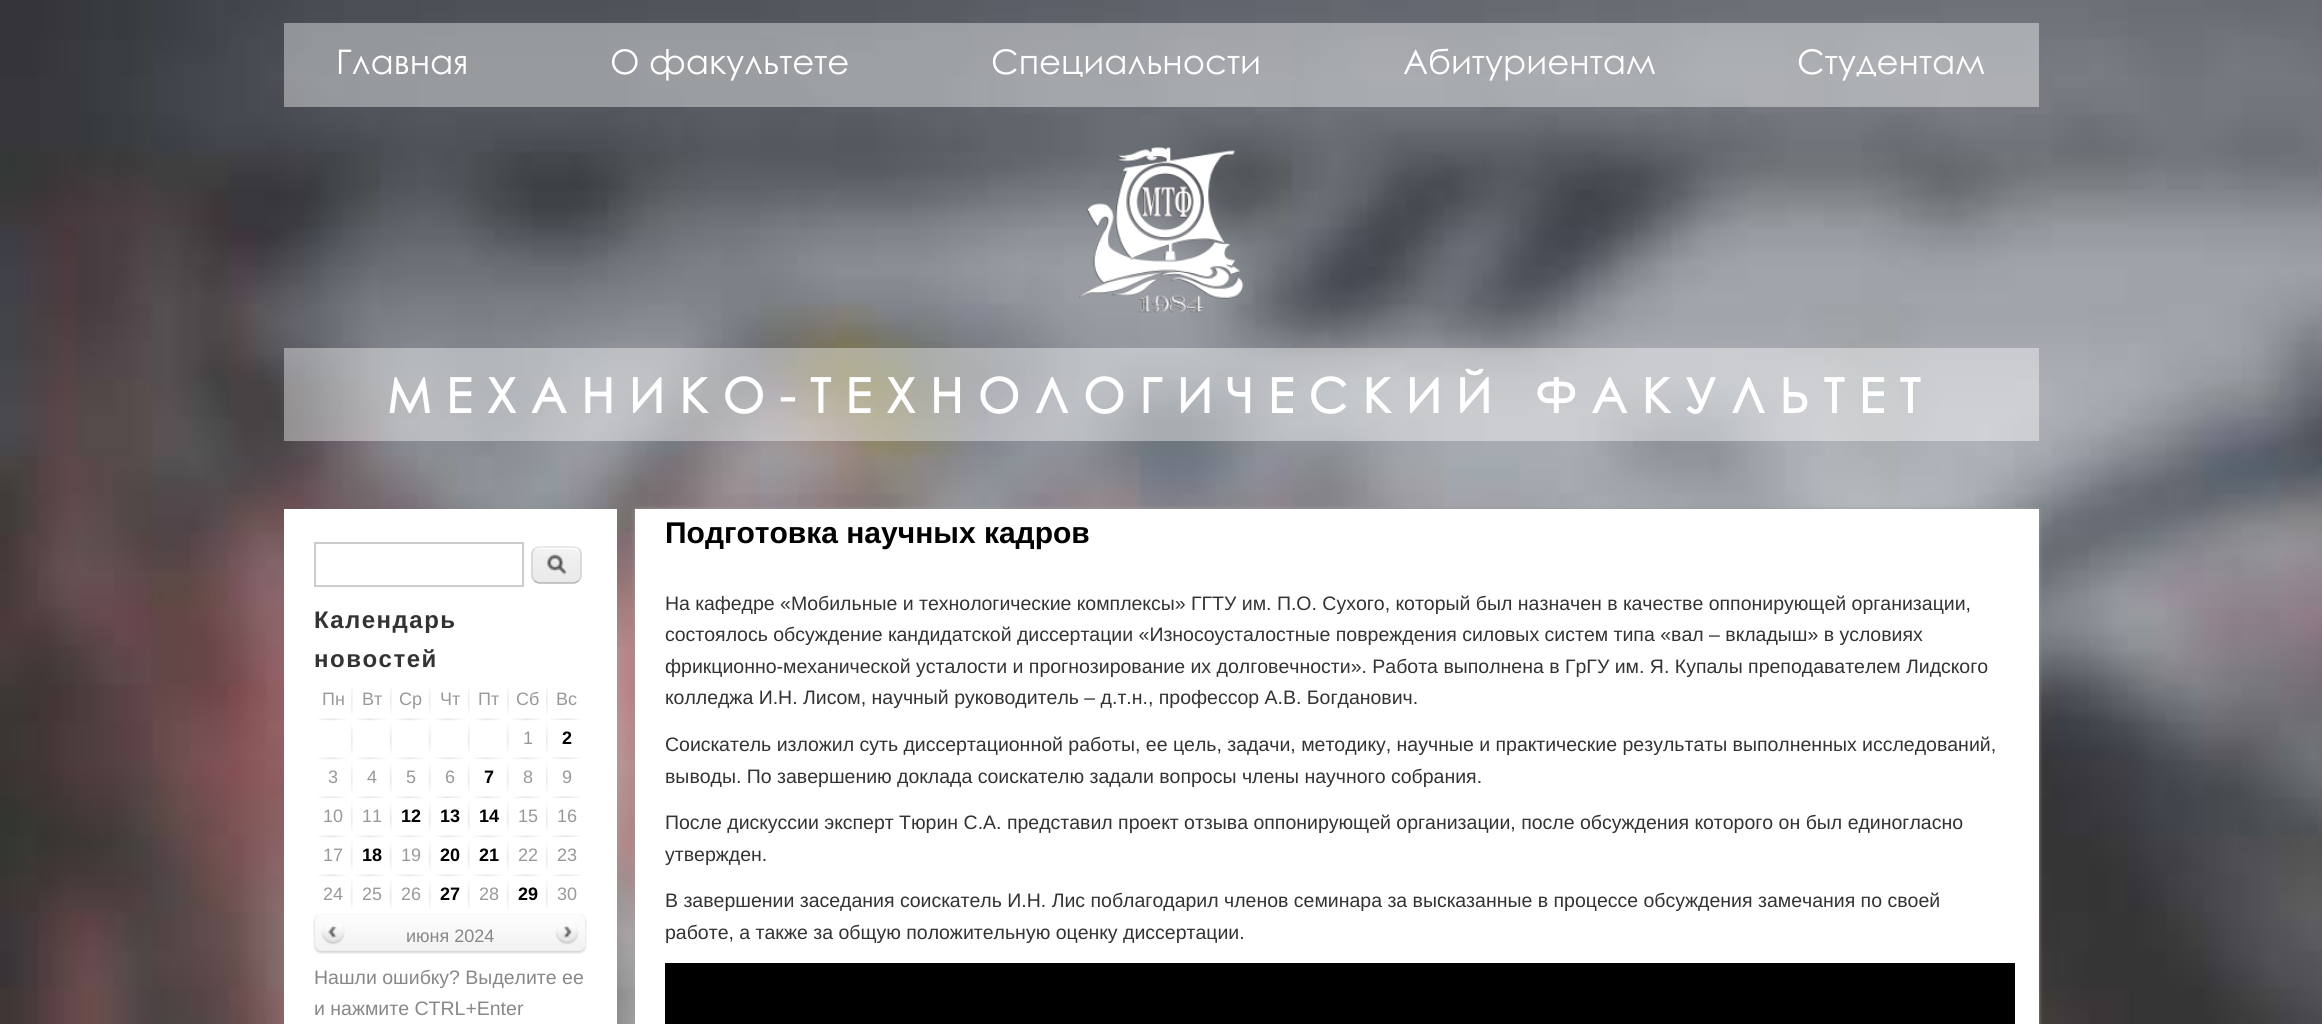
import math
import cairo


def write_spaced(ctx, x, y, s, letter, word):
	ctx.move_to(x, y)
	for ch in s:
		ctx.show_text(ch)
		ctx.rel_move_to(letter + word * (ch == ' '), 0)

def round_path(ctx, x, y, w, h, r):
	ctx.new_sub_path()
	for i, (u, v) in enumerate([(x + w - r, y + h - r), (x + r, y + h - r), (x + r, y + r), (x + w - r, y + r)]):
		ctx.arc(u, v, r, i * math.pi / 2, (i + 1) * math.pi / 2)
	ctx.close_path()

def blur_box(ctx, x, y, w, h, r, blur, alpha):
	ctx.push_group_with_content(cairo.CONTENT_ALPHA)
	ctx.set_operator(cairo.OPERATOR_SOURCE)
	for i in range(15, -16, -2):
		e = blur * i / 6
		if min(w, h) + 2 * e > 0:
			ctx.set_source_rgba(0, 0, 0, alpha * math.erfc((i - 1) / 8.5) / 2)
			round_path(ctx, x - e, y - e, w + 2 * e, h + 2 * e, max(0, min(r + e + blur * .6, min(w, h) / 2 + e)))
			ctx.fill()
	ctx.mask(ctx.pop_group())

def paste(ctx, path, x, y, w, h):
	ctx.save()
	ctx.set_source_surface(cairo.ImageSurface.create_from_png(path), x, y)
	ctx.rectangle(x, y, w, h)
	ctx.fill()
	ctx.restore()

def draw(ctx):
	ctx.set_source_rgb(1, 1, 1)
	ctx.paint()
	paste(ctx, 'media/1.png', 0, 0, 2322, 1024)
	ctx.set_source_rgba(1, 1, 1, 0.4)
	ctx.rectangle(284, 23, 1755, 84)
	ctx.fill()
	ctx.select_font_face('Century Gothic')
	ctx.set_font_size(34)
	ctx.set_source_rgb(1, 1, 1)
	for x, y, s in [
		(336, 74, 'Главная'),
		(610, 74, 'О факультете'),
		(991, 74, 'Специальности'),
		(1403, 74, 'Абитуриентам'),
		(1797, 74, 'Студентам'),
	]:
		ctx.move_to(x, y)
		ctx.show_text(s)
	paste(ctx, 'media/2.png', 1078, 147, 166, 166)
	ctx.set_source_rgba(1, 1, 1, 0.4)
	ctx.rectangle(284, 348, 1755, 93)
	ctx.fill()
	ctx.select_font_face('Century Gothic', cairo.FONT_SLANT_NORMAL, cairo.FONT_WEIGHT_BOLD)
	ctx.set_font_size(48)
	ctx.set_source_rgb(1, 1, 1)
	write_spaced(ctx, 387, 413, 'МЕХАНИКО-ТЕХНОЛОГИЧЕСКИЙ ФАКУЛЬТЕТ', 14.9, 0)
	ctx.rectangle(284, 509, 333, 515)
	ctx.fill()
	ctx.rectangle(315, 543, 208, 43)
	ctx.set_source_rgb(0.8, 0.8, 0.8)
	ctx.stroke()
	paste(ctx, 'media/3.png', 531, 547, 51, 37)
	ctx.set_source_rgb(1, 1, 1)
	ctx.new_path()
	ctx.move_to(540, 549)
	ctx.line_to(562, 549)
	ctx.curve_to(567, 549, 578, 547, 580, 555)
	ctx.line_to(580, 578)
	ctx.curve_to(580, 577, 581, 576, 581, 574)
	ctx.line_to(581, 556)
	ctx.curve_to(581, 552, 577, 548, 573, 548)
	ctx.line_to(541, 548)
	ctx.curve_to(539, 548, 537, 549, 535, 550)
	ctx.curve_to(537, 550, 538, 549, 540, 549)
	ctx.close_path()
	ctx.fill()
	ctx.new_path()
	ctx.move_to(534, 549)
	ctx.curve_to(535.5, 547.5, 538, 547, 540, 547)
	ctx.line_to(573, 547)
	ctx.curve_to(575, 547, 577.5, 547.5, 579, 549)
	ctx.set_source_rgb(0.894, 0.894, 0.894)
	ctx.set_line_width(1.5)
	ctx.stroke()
	ctx.new_path()
	ctx.move_to(579, 549)
	ctx.curve_to(580.5, 550.5, 581, 553, 581, 555)
	ctx.line_to(581, 574.5)
	ctx.curve_to(581, 576.5, 580.5, 579, 579, 580.5)
	ctx.set_source_rgb(0.824, 0.824, 0.824)
	ctx.stroke()
	ctx.new_path()
	ctx.move_to(579, 580.5)
	ctx.curve_to(577.5, 582, 575, 583, 573, 583)
	ctx.line_to(540, 583)
	ctx.curve_to(538, 583, 535.5, 582, 534, 580.5)
	ctx.set_source_rgb(0.706, 0.706, 0.706)
	ctx.stroke()
	ctx.new_path()
	ctx.move_to(534, 580.5)
	ctx.curve_to(532.5, 579, 532, 576.5, 532, 574.5)
	ctx.line_to(532, 555)
	ctx.curve_to(532, 553, 532.5, 550.5, 534, 549)
	ctx.set_source_rgb(0.824, 0.824, 0.824)
	ctx.stroke()
	ctx.select_font_face('Liberation Sans', cairo.FONT_SLANT_NORMAL, cairo.FONT_WEIGHT_BOLD)
	ctx.set_font_size(24)
	ctx.set_source_rgb(0.2, 0.2, 0.2)
	write_spaced(ctx, 314, 628, 'Календарь', 1.5, 0)
	write_spaced(ctx, 314, 667, 'новостей', 1.5, 0)
	paste(ctx, 'media/4.png', 351, 687, 2, 27)
	ctx.select_font_face('Liberation Sans')
	ctx.set_font_size(18)
	ctx.set_source_rgb(0.6, 0.6, 0.6)
	ctx.move_to(322, 705)
	ctx.show_text('Пн')
	paste(ctx, 'media/4.png', 390, 687, 2, 27)
	ctx.move_to(362, 705)
	ctx.show_text('Вт')
	paste(ctx, 'media/4.png', 429, 687, 2, 27)
	ctx.move_to(399, 705)
	ctx.show_text('Ср')
	paste(ctx, 'media/4.png', 468, 687, 2, 27)
	ctx.move_to(440, 705)
	ctx.show_text('Чт')
	paste(ctx, 'media/4.png', 507, 687, 2, 27)
	ctx.move_to(478, 705)
	ctx.show_text('Пт')
	paste(ctx, 'media/4.png', 546, 687, 2, 27)
	ctx.move_to(516, 705)
	ctx.show_text('Сб')
	ctx.move_to(556, 705)
	ctx.show_text('Вс')
	paste(ctx, 'media/5.png', 318, 718, 35, 35)
	paste(ctx, 'media/6.png', 357, 718, 35, 35)
	paste(ctx, 'media/6.png', 396, 718, 35, 35)
	paste(ctx, 'media/6.png', 435, 718, 35, 35)
	paste(ctx, 'media/5.png', 474, 718, 35, 35)
	paste(ctx, 'media/5.png', 513, 718, 35, 35)
	ctx.move_to(523, 744)
	ctx.show_text('1')
	paste(ctx, 'media/7.png', 551, 718, 30, 2)
	ctx.select_font_face('Liberation Sans', cairo.FONT_SLANT_NORMAL, cairo.FONT_WEIGHT_BOLD)
	ctx.set_source_rgb(0, 0, 0)
	ctx.move_to(562, 744)
	ctx.show_text('2')
	paste(ctx, 'media/5.png', 318, 757, 35, 35)
	ctx.select_font_face('Liberation Sans')
	ctx.set_source_rgb(0.6, 0.6, 0.6)
	ctx.move_to(328, 783)
	ctx.show_text('3')
	paste(ctx, 'media/6.png', 357, 757, 35, 35)
	ctx.move_to(367, 783)
	ctx.show_text('4')
	paste(ctx, 'media/6.png', 396, 757, 35, 35)
	ctx.move_to(406, 783)
	ctx.show_text('5')
	paste(ctx, 'media/6.png', 435, 757, 35, 35)
	ctx.move_to(445, 783)
	ctx.show_text('6')
	paste(ctx, 'media/5.png', 474, 757, 35, 35)
	ctx.select_font_face('Liberation Sans', cairo.FONT_SLANT_NORMAL, cairo.FONT_WEIGHT_BOLD)
	ctx.set_source_rgb(0, 0, 0)
	ctx.move_to(484, 783)
	ctx.show_text('7')
	paste(ctx, 'media/5.png', 513, 757, 35, 35)
	ctx.select_font_face('Liberation Sans')
	ctx.set_source_rgb(0.6, 0.6, 0.6)
	ctx.move_to(523, 783)
	ctx.show_text('8')
	paste(ctx, 'media/7.png', 551, 757, 30, 2)
	ctx.move_to(562, 783)
	ctx.show_text('9')
	paste(ctx, 'media/5.png', 318, 796, 35, 35)
	ctx.move_to(323, 822)
	ctx.show_text('10')
	paste(ctx, 'media/6.png', 357, 796, 35, 35)
	ctx.move_to(362, 822)
	ctx.show_text('11')
	paste(ctx, 'media/6.png', 396, 796, 35, 35)
	ctx.select_font_face('Liberation Sans', cairo.FONT_SLANT_NORMAL, cairo.FONT_WEIGHT_BOLD)
	ctx.set_source_rgb(0, 0, 0)
	ctx.move_to(401, 822)
	ctx.show_text('12')
	paste(ctx, 'media/6.png', 435, 796, 35, 35)
	ctx.move_to(440, 822)
	ctx.show_text('13')
	paste(ctx, 'media/5.png', 474, 796, 35, 35)
	ctx.move_to(479, 822)
	ctx.show_text('14')
	paste(ctx, 'media/5.png', 513, 796, 35, 35)
	ctx.select_font_face('Liberation Sans')
	ctx.set_source_rgb(0.6, 0.6, 0.6)
	ctx.move_to(518, 822)
	ctx.show_text('15')
	paste(ctx, 'media/7.png', 551, 796, 30, 2)
	ctx.move_to(557, 822)
	ctx.show_text('16')
	paste(ctx, 'media/5.png', 318, 835, 35, 35)
	ctx.move_to(323, 861)
	ctx.show_text('17')
	paste(ctx, 'media/6.png', 357, 835, 35, 35)
	ctx.select_font_face('Liberation Sans', cairo.FONT_SLANT_NORMAL, cairo.FONT_WEIGHT_BOLD)
	ctx.set_source_rgb(0, 0, 0)
	ctx.move_to(362, 861)
	ctx.show_text('18')
	paste(ctx, 'media/6.png', 396, 835, 35, 35)
	ctx.select_font_face('Liberation Sans')
	ctx.set_source_rgb(0.6, 0.6, 0.6)
	ctx.move_to(401, 861)
	ctx.show_text('19')
	paste(ctx, 'media/6.png', 435, 835, 35, 35)
	ctx.select_font_face('Liberation Sans', cairo.FONT_SLANT_NORMAL, cairo.FONT_WEIGHT_BOLD)
	ctx.set_source_rgb(0, 0, 0)
	ctx.move_to(440, 861)
	ctx.show_text('20')
	paste(ctx, 'media/5.png', 474, 835, 35, 35)
	ctx.move_to(479, 861)
	ctx.show_text('21')
	paste(ctx, 'media/5.png', 513, 835, 35, 35)
	ctx.select_font_face('Liberation Sans')
	ctx.set_source_rgb(0.6, 0.6, 0.6)
	ctx.move_to(518, 861)
	ctx.show_text('22')
	paste(ctx, 'media/7.png', 551, 835, 30, 2)
	ctx.move_to(557, 861)
	ctx.show_text('23')
	paste(ctx, 'media/5.png', 318, 874, 35, 35)
	ctx.move_to(323, 900)
	ctx.show_text('24')
	paste(ctx, 'media/6.png', 357, 874, 35, 35)
	ctx.move_to(362, 900)
	ctx.show_text('25')
	paste(ctx, 'media/6.png', 396, 874, 35, 35)
	ctx.move_to(401, 900)
	ctx.show_text('26')
	paste(ctx, 'media/6.png', 435, 874, 35, 35)
	ctx.select_font_face('Liberation Sans', cairo.FONT_SLANT_NORMAL, cairo.FONT_WEIGHT_BOLD)
	ctx.set_source_rgb(0, 0, 0)
	ctx.move_to(440, 900)
	ctx.show_text('27')
	paste(ctx, 'media/5.png', 474, 874, 35, 35)
	ctx.select_font_face('Liberation Sans')
	ctx.set_source_rgb(0.6, 0.6, 0.6)
	ctx.move_to(479, 900)
	ctx.show_text('28')
	paste(ctx, 'media/5.png', 513, 874, 35, 35)
	ctx.select_font_face('Liberation Sans', cairo.FONT_SLANT_NORMAL, cairo.FONT_WEIGHT_BOLD)
	ctx.set_source_rgb(0, 0, 0)
	ctx.move_to(518, 900)
	ctx.show_text('29')
	paste(ctx, 'media/7.png', 551, 874, 30, 2)
	ctx.select_font_face('Liberation Sans')
	ctx.set_source_rgb(0.6, 0.6, 0.6)
	ctx.move_to(557, 900)
	ctx.show_text('30')
	paste(ctx, 'media/8.png', 313, 914, 274, 40)
	paste(ctx, 'media/9.png', 321, 925, 24, 20)
	ctx.set_source_rgb(0.533, 0.533, 0.533)
	ctx.move_to(406, 942)
	ctx.show_text('июня 2024')
	paste(ctx, 'media/10.png', 555, 925, 24, 20)
	ctx.set_font_size(19.5)
	ctx.move_to(314, 984)
	ctx.show_text('Нашли ошибку? Выделите ее')
	ctx.move_to(314, 1015)
	ctx.show_text('и нажмите CTRL+Enter')
	ctx.set_source_rgb(0.6, 0.6, 0.6)
	blur_box(ctx, 635, 509, 1404, 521, 0, 2, 1)
	ctx.set_source_rgb(1, 1, 1)
	ctx.rectangle(635, 509, 1404, 515)
	ctx.fill()
	ctx.select_font_face('Liberation Sans', cairo.FONT_SLANT_NORMAL, cairo.FONT_WEIGHT_BOLD)
	ctx.set_font_size(30)
	ctx.set_source_rgb(0, 0, 0)
	ctx.move_to(665, 543)
	ctx.show_text('Подготовка научных кадров')
	ctx.select_font_face('Liberation Sans')
	ctx.set_font_size(19.5)
	ctx.set_source_rgb(0.2, 0.2, 0.2)
	for x, y, s in [
		(665, 610, 'На кафедре «Мобильные и технологические комплексы» ГГТУ им. П.О. Сухого, который был назначен в качестве оппонирующей организации,'),
		(665, 641, 'состоялось обсуждение кандидатской диссертации «Износоусталостные повреждения силовых систем типа «вал – вкладыш» в условиях'),
		(665, 673, 'фрикционно-механической усталости и прогнозирование их долговечности». Работа выполнена в ГрГУ им. Я. Купалы преподавателем Лидского'),
		(665, 704, 'колледжа И.Н. Лисом, научный руководитель – д.т.н., профессор А.В. Богданович.'),
		(665, 751, 'Соискатель изложил суть диссертационной работы, ее цель, задачи, методику, научные и практические результаты выполненных исследований,'),
		(665, 783, 'выводы. По завершению доклада соискателю задали вопросы члены научного собрания.'),
		(665, 829, 'После дискуссии эксперт Тюрин С.А. представил проект отзыва оппонирующей организации, после обсуждения которого он был единогласно'),
		(665, 861, 'утвержден.'),
		(665, 907, 'В завершении заседания соискатель И.Н. Лис поблагодарил членов семинара за высказанные в процессе обсуждения замечания по своей'),
		(665, 939, 'работе, а также за общую положительную оценку диссертации.'),
	]:
		ctx.move_to(x, y)
		ctx.show_text(s)
	ctx.set_source_rgb(0, 0, 0)
	ctx.rectangle(665, 963, 1350, 61)
	ctx.fill()


surface = cairo.ImageSurface(cairo.FORMAT_RGB24, 2322, 1024)
ctx = cairo.Context(surface)
options = cairo.FontOptions()
options.set_hint_metrics(cairo.HINT_METRICS_OFF)
options.set_hint_style(cairo.HINT_STYLE_NONE)
ctx.set_font_options(options)
ctx.set_miter_limit(4)
draw(ctx)
surface.write_to_png('image.png')
